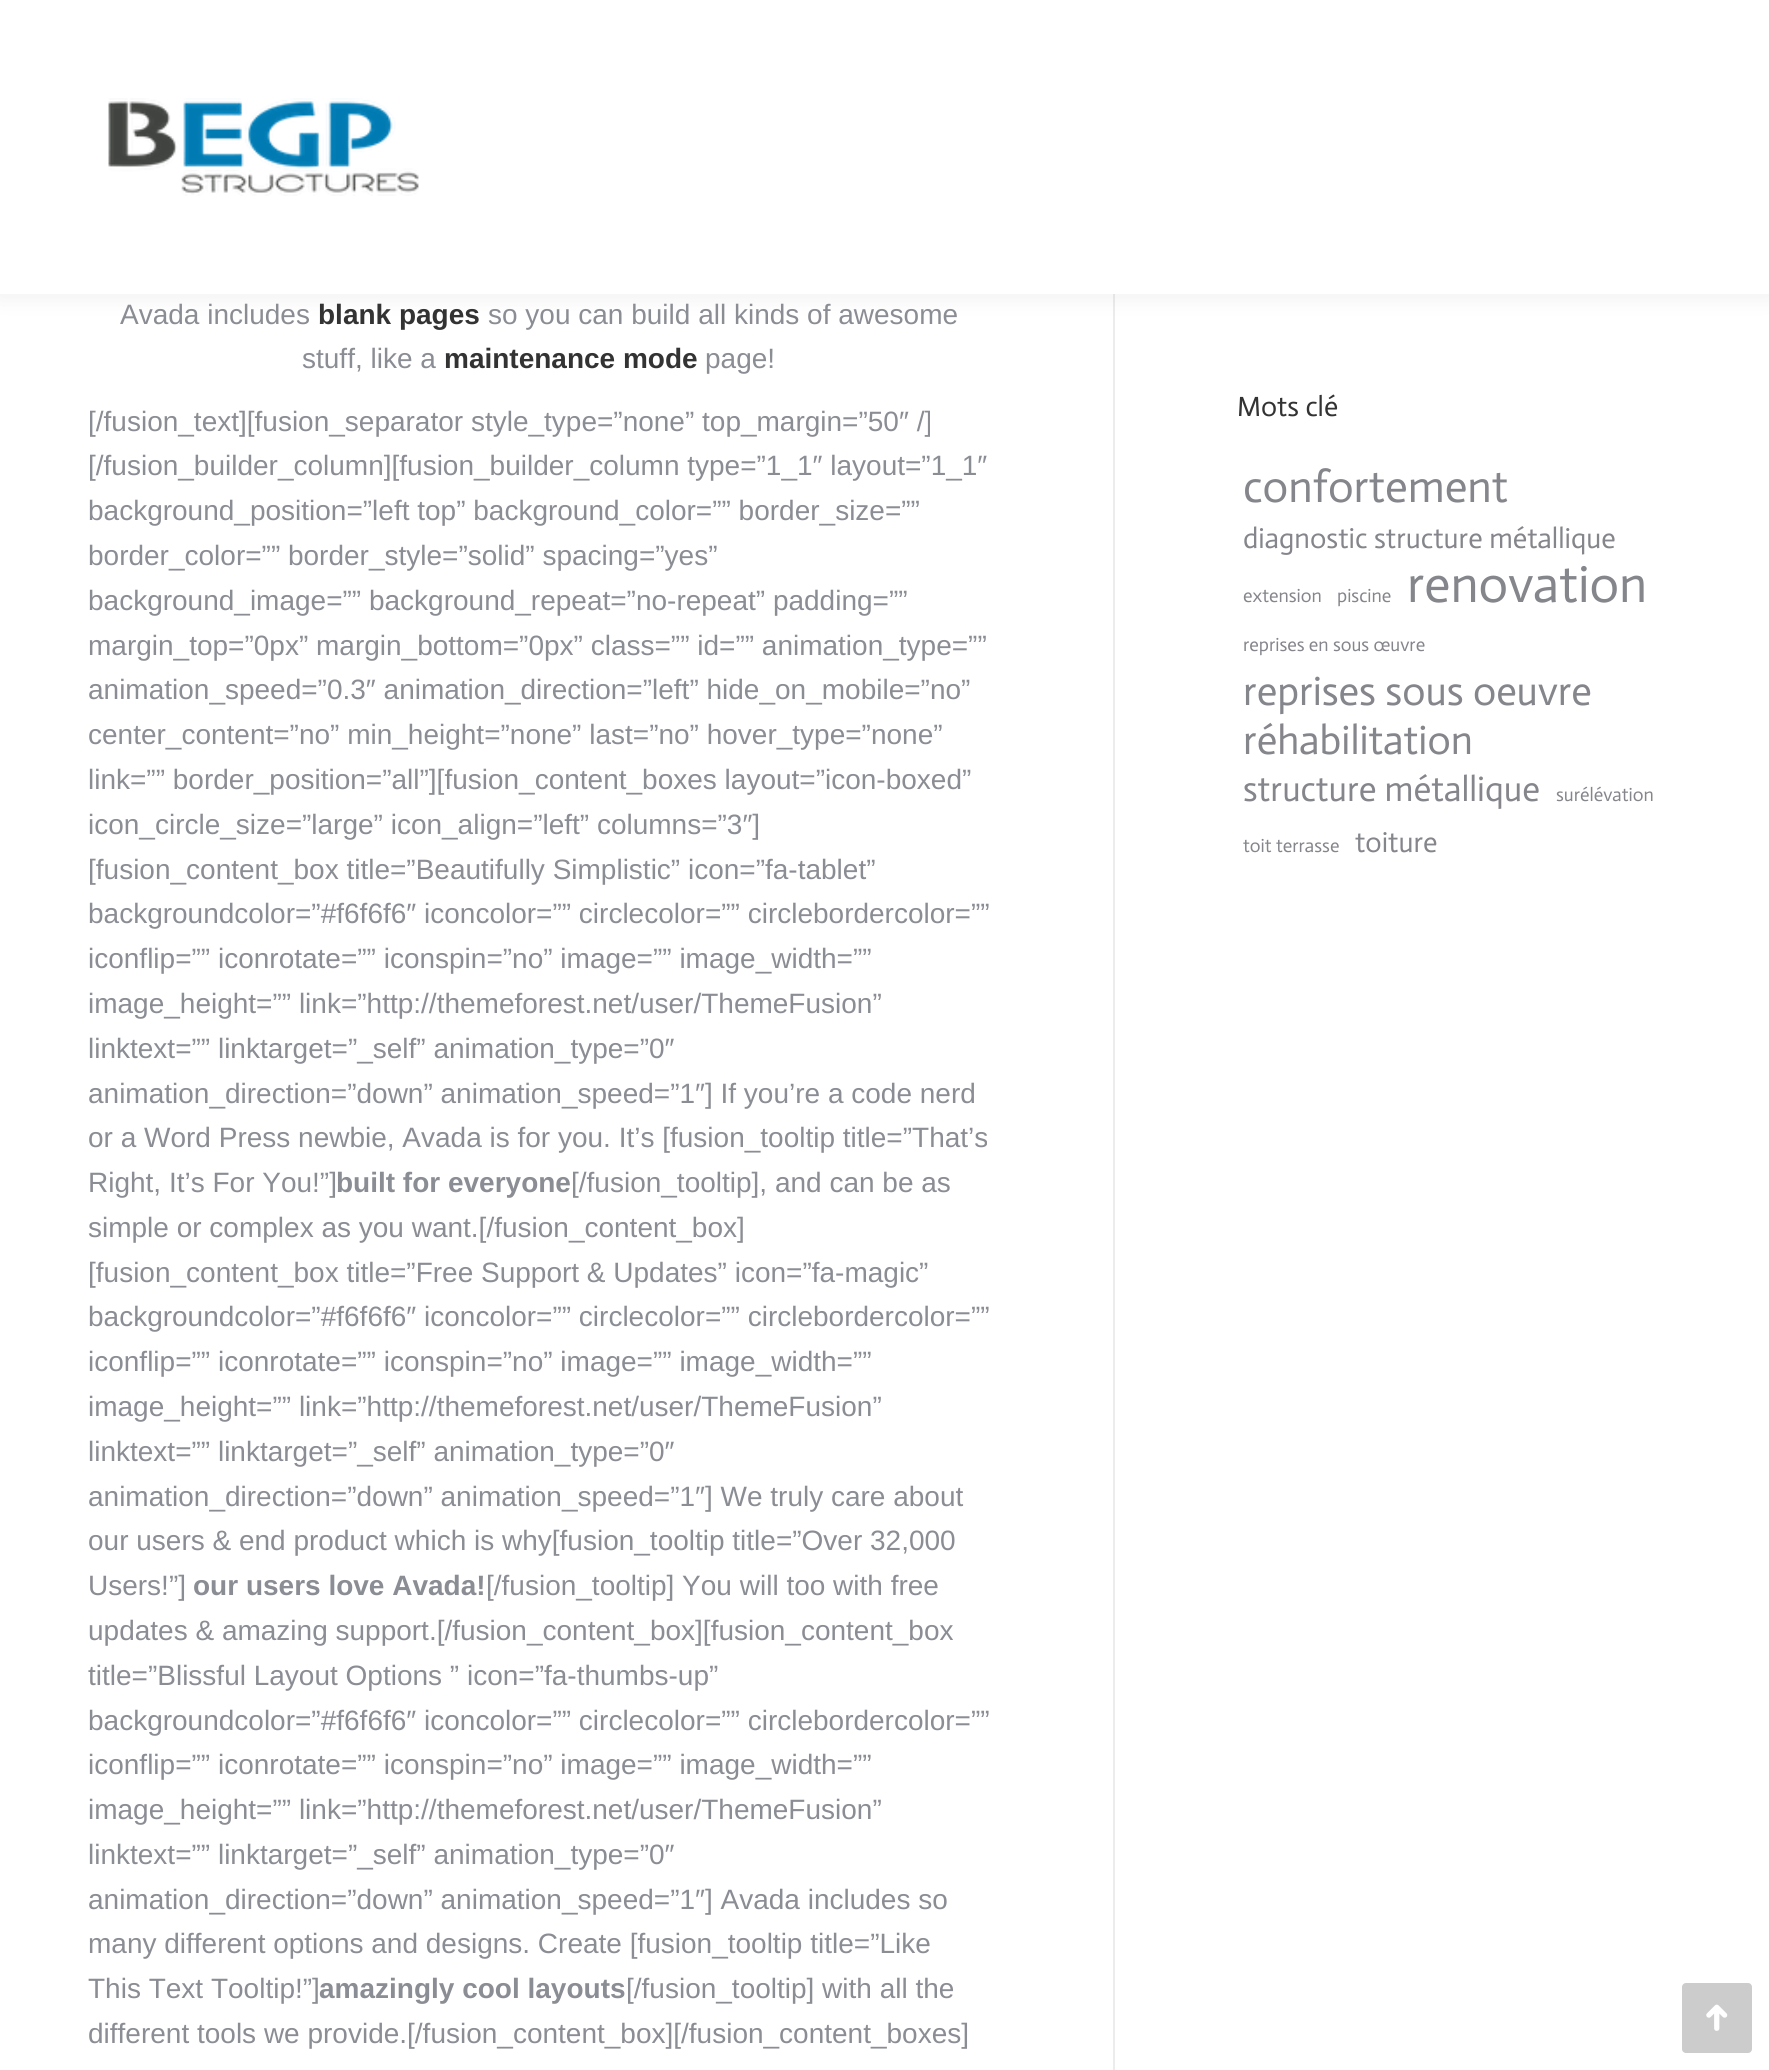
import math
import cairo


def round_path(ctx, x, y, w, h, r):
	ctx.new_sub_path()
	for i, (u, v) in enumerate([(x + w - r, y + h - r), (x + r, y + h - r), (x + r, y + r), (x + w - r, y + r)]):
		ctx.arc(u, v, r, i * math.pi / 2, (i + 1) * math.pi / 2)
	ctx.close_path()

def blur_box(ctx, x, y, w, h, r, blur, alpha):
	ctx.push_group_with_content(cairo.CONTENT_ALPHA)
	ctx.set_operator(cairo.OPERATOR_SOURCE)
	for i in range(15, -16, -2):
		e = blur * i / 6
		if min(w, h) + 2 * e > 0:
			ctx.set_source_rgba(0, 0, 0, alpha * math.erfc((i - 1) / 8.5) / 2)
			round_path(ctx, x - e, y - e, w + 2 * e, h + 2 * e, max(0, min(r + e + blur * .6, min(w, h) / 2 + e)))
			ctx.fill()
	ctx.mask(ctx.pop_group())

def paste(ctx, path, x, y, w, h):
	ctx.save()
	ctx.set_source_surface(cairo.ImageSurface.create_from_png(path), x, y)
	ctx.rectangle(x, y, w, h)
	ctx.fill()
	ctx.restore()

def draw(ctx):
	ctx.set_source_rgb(1, 1, 1)
	ctx.paint()
	ctx.set_source_rgb(0.922, 0.922, 0.922)
	ctx.rectangle(1113, 294, 2, 1776)
	ctx.fill()
	ctx.set_source_rgb(0, 0, 0)
	blur_box(ctx, -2, -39, 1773, 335, 0, 13, 0.07)
	ctx.set_source_rgb(1, 1, 1)
	ctx.rectangle(0, 0, 1769, 294)
	ctx.fill()
	paste(ctx, 'media/1.png', 108, 98, 311, 98)
	ctx.select_font_face('Liberation Sans')
	ctx.set_font_size(28)
	ctx.set_source_rgb(0.545, 0.553, 0.58)
	ctx.move_to(120, 324)
	ctx.show_text('Avada includes')
	ctx.select_font_face('Liberation Sans', cairo.FONT_SLANT_NORMAL, cairo.FONT_WEIGHT_BOLD)
	ctx.set_source_rgb(0.2, 0.2, 0.2)
	ctx.move_to(318, 324)
	ctx.show_text('blank pages')
	ctx.select_font_face('Liberation Sans')
	ctx.set_source_rgb(0.545, 0.553, 0.58)
	ctx.move_to(488, 324)
	ctx.show_text('so you can build all kinds of awesome')
	ctx.move_to(302, 368)
	ctx.show_text('stuff, like a')
	ctx.select_font_face('Liberation Sans', cairo.FONT_SLANT_NORMAL, cairo.FONT_WEIGHT_BOLD)
	ctx.set_source_rgb(0.2, 0.2, 0.2)
	ctx.move_to(444, 368)
	ctx.show_text('maintenance mode')
	ctx.select_font_face('Liberation Sans')
	ctx.set_source_rgb(0.545, 0.553, 0.58)
	for x, y, s in [
		(705, 368, 'page!'),
		(88, 431, '[/fusion_text][fusion_separator style_type=”none” top_margin=”50″ /]'),
		(88, 475, '[/fusion_builder_column][fusion_builder_column type=”1_1″ layout=”1_1″'),
		(88, 520, 'background_position=”left top” background_color=”” border_size=””'),
		(88, 565, 'border_color=”” border_style=”solid” spacing=”yes”'),
		(88, 610, 'background_image=”” background_repeat=”no-repeat” padding=””'),
		(88, 655, 'margin_top=”0px” margin_bottom=”0px” class=”” id=”” animation_type=””'),
		(88, 699, 'animation_speed=”0.3″ animation_direction=”left” hide_on_mobile=”no”'),
		(88, 744, 'center_content=”no” min_height=”none” last=”no” hover_type=”none”'),
		(88, 789, 'link=”” border_position=”all”][fusion_content_boxes layout=”icon-boxed”'),
		(88, 834, 'icon_circle_size=”large” icon_align=”left” columns=”3″]'),
		(88, 879, '[fusion_content_box title=”Beautifully Simplistic” icon=”fa-tablet”'),
		(88, 923, 'backgroundcolor=”#f6f6f6″ iconcolor=”” circlecolor=”” circlebordercolor=””'),
		(88, 968, 'iconflip=”” iconrotate=”” iconspin=”no” image=”” image_width=””'),
		(88, 1013, 'image_height=”” link=”http://themeforest.net/user/ThemeFusion”'),
		(88, 1058, 'linktext=”” linktarget=”_self” animation_type=”0″'),
		(88, 1103, 'animation_direction=”down” animation_speed=”1″] If you’re a code nerd'),
		(88, 1147, 'or a Word Press newbie, Avada is for you. It’s [fusion_tooltip title=”That’s'),
		(88, 1192, 'Right, It’s For You!”]'),
	]:
		ctx.move_to(x, y)
		ctx.show_text(s)
	ctx.select_font_face('Liberation Sans', cairo.FONT_SLANT_NORMAL, cairo.FONT_WEIGHT_BOLD)
	ctx.move_to(336, 1192)
	ctx.show_text('built for everyone')
	ctx.select_font_face('Liberation Sans')
	for x, y, s in [
		(571, 1192, '[/fusion_tooltip], and can be as'),
		(88, 1237, 'simple or complex as you want.[/fusion_content_box]'),
		(88, 1282, '[fusion_content_box title=”Free Support & Updates” icon=”fa-magic”'),
		(88, 1326, 'backgroundcolor=”#f6f6f6″ iconcolor=”” circlecolor=”” circlebordercolor=””'),
		(88, 1371, 'iconflip=”” iconrotate=”” iconspin=”no” image=”” image_width=””'),
		(88, 1416, 'image_height=”” link=”http://themeforest.net/user/ThemeFusion”'),
		(88, 1461, 'linktext=”” linktarget=”_self” animation_type=”0″'),
		(88, 1506, 'animation_direction=”down” animation_speed=”1″] We truly care about'),
		(88, 1550, 'our users & end product which is why[fusion_tooltip title=”Over 32,000'),
		(88, 1595, 'Users!”]'),
	]:
		ctx.move_to(x, y)
		ctx.show_text(s)
	ctx.select_font_face('Liberation Sans', cairo.FONT_SLANT_NORMAL, cairo.FONT_WEIGHT_BOLD)
	ctx.move_to(193, 1595)
	ctx.show_text('our users love Avada!')
	ctx.select_font_face('Liberation Sans')
	for x, y, s in [
		(486, 1595, '[/fusion_tooltip] You will too with free'),
		(88, 1640, 'updates & amazing support.[/fusion_content_box][fusion_content_box'),
		(88, 1685, 'title=”Blissful Layout Options ” icon=”fa-thumbs-up”'),
		(88, 1730, 'backgroundcolor=”#f6f6f6″ iconcolor=”” circlecolor=”” circlebordercolor=””'),
		(88, 1774, 'iconflip=”” iconrotate=”” iconspin=”no” image=”” image_width=””'),
		(88, 1819, 'image_height=”” link=”http://themeforest.net/user/ThemeFusion”'),
		(88, 1864, 'linktext=”” linktarget=”_self” animation_type=”0″'),
		(88, 1909, 'animation_direction=”down” animation_speed=”1″] Avada includes so'),
		(88, 1953, 'many different options and designs. Create [fusion_tooltip title=”Like'),
		(88, 1998, 'This Text Tooltip!”]'),
	]:
		ctx.move_to(x, y)
		ctx.show_text(s)
	ctx.select_font_face('Liberation Sans', cairo.FONT_SLANT_NORMAL, cairo.FONT_WEIGHT_BOLD)
	ctx.move_to(319, 1998)
	ctx.show_text('amazingly cool layouts')
	ctx.select_font_face('Liberation Sans')
	ctx.move_to(626, 1998)
	ctx.show_text('[/fusion_tooltip] with all the')
	ctx.move_to(88, 2043)
	ctx.show_text('different tools we provide.[/fusion_content_box][/fusion_content_boxes]')
	ctx.select_font_face('Actor')
	ctx.set_source_rgb(0.2, 0.2, 0.2)
	ctx.move_to(1237, 416)
	ctx.show_text('Mots clé')
	ctx.set_font_size(44.75)
	ctx.set_source_rgb(0.522, 0.525, 0.549)
	ctx.move_to(1243, 502)
	ctx.show_text('confortement')
	ctx.set_font_size(28.5)
	ctx.move_to(1243, 548)
	ctx.show_text('diagnostic structure métallique')
	ctx.set_font_size(18.75)
	ctx.move_to(1243, 602)
	ctx.show_text('extension')
	ctx.move_to(1337, 602)
	ctx.show_text('piscine')
	ctx.set_font_size(51.5)
	ctx.move_to(1407, 602)
	ctx.show_text('renovation')
	ctx.set_font_size(18.75)
	ctx.move_to(1243, 651)
	ctx.show_text('reprises en sous œuvre')
	ctx.set_font_size(40.5)
	ctx.move_to(1243, 705)
	ctx.show_text('reprises sous oeuvre')
	ctx.move_to(1243, 754)
	ctx.show_text('réhabilitation')
	ctx.set_font_size(35)
	ctx.move_to(1243, 801)
	ctx.show_text('structure métallique')
	ctx.set_font_size(18.75)
	ctx.move_to(1556, 801)
	ctx.show_text('surélévation')
	ctx.move_to(1243, 852)
	ctx.show_text('toit terrasse')
	ctx.set_font_size(28.5)
	ctx.move_to(1355, 852)
	ctx.show_text('toiture')
	ctx.set_source_rgb(0.8, 0.8, 0.8)
	round_path(ctx, 1682, 1983, 70, 70, 4)
	ctx.fill()
	paste(ctx, 'media/2.png', 1706, 2004, 22, 27)


surface = cairo.ImageSurface(cairo.FORMAT_RGB24, 1769, 2070)
ctx = cairo.Context(surface)
options = cairo.FontOptions()
options.set_hint_metrics(cairo.HINT_METRICS_OFF)
options.set_hint_style(cairo.HINT_STYLE_NONE)
ctx.set_font_options(options)
ctx.set_miter_limit(4)
draw(ctx)
surface.write_to_png('image.png')
